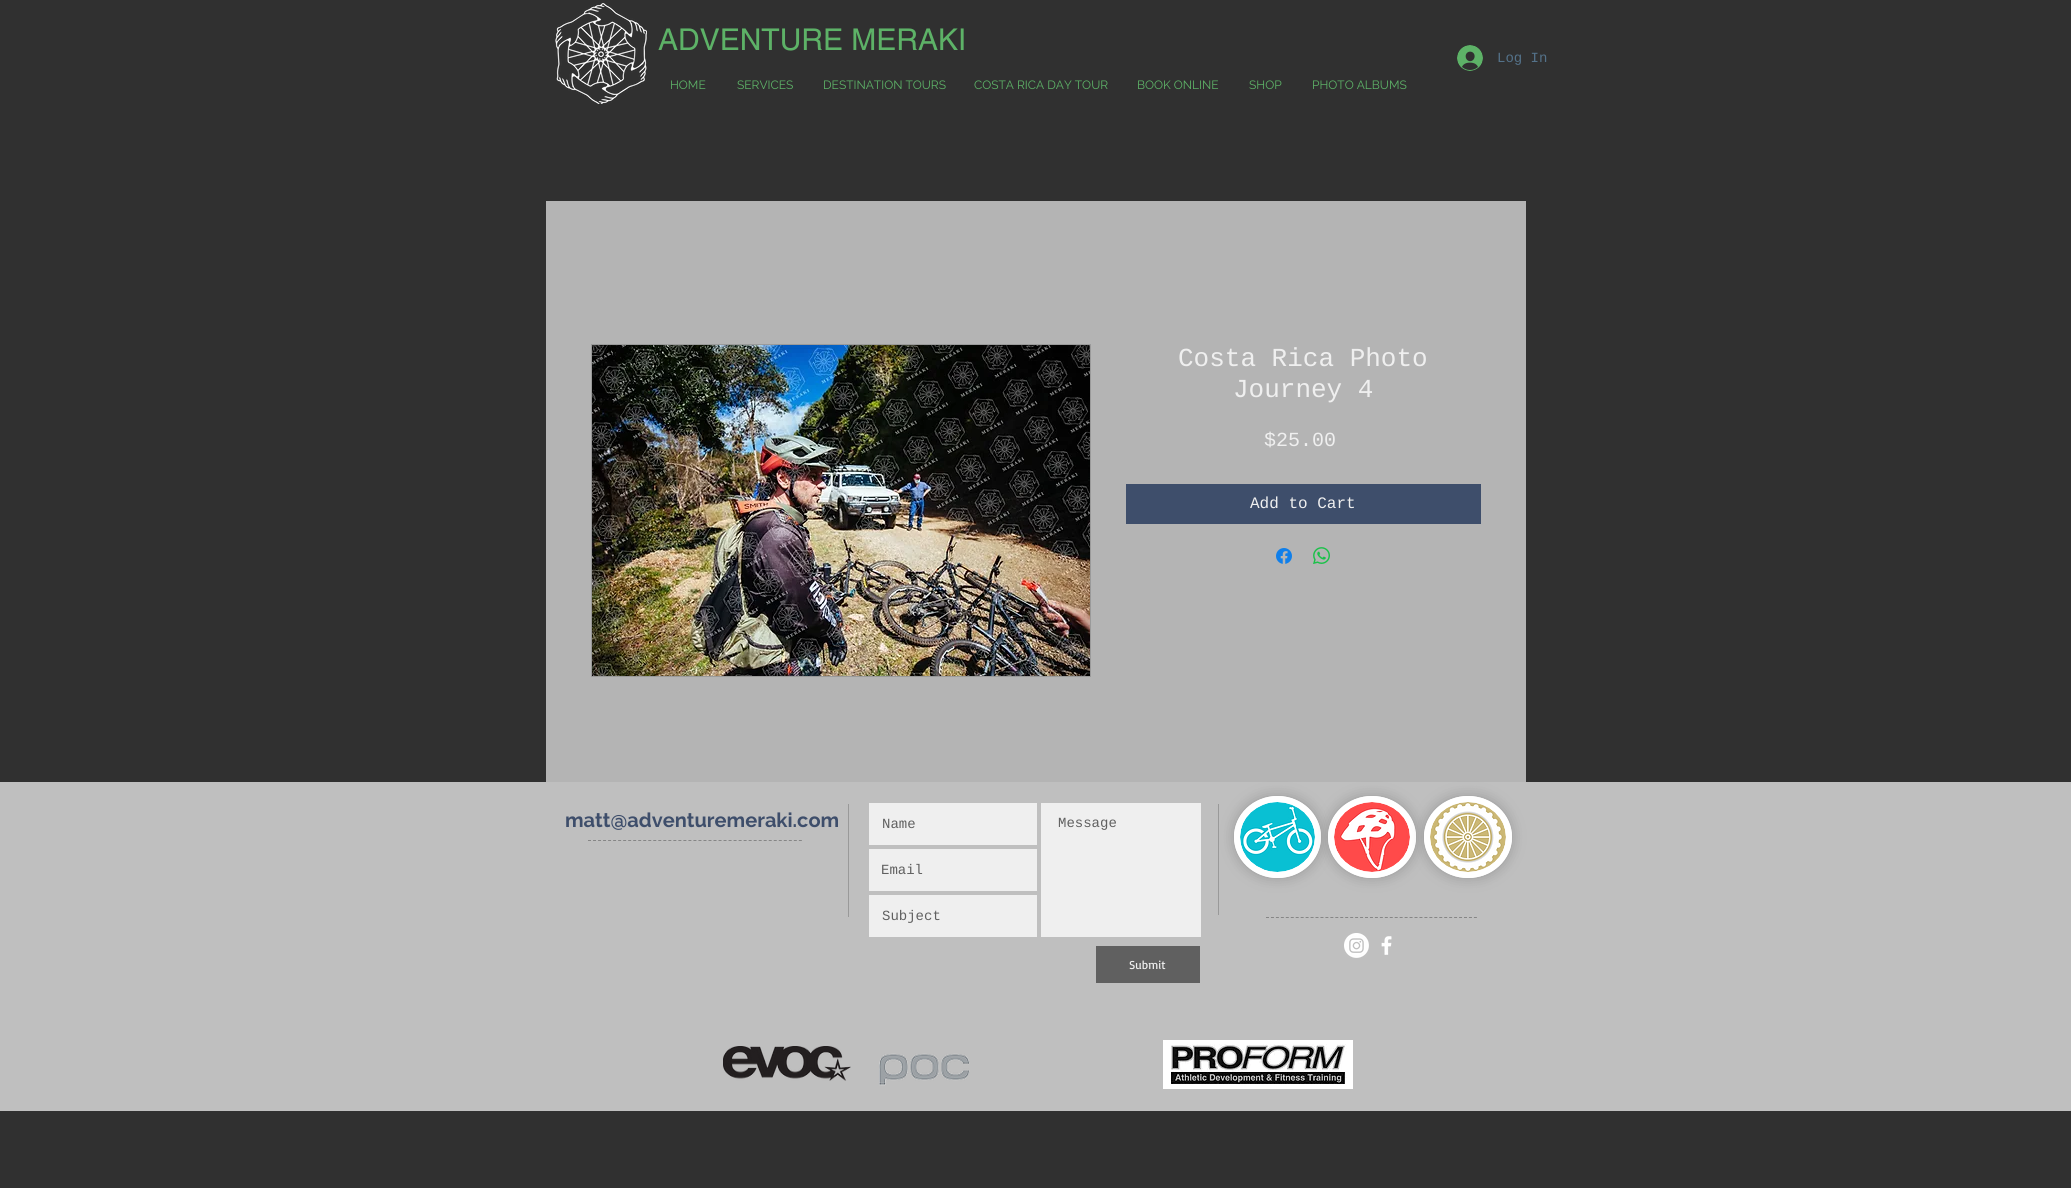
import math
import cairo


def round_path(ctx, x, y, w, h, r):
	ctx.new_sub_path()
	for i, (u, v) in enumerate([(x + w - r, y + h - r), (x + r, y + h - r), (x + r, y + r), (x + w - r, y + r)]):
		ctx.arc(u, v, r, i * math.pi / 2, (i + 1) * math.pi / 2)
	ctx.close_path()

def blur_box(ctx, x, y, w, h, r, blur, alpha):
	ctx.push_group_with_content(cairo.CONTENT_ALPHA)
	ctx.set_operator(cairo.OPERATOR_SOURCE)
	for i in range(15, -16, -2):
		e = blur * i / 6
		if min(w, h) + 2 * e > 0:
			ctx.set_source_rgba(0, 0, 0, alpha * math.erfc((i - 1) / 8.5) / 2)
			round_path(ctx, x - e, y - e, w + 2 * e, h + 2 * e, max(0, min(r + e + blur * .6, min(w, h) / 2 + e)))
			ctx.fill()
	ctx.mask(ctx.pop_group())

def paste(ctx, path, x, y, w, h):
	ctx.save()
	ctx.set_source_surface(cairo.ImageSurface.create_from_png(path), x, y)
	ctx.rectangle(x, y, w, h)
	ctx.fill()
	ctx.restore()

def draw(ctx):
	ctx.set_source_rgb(0.188, 0.188, 0.188)
	ctx.paint()
	paste(ctx, 'media/1.png', 555, 3, 92, 101)
	ctx.select_font_face('helvetica')
	ctx.set_font_size(30)
	ctx.set_source_rgb(0.365, 0.698, 0.404)
	ctx.move_to(658, 50)
	ctx.show_text('ADVENTURE MERAKI')
	paste(ctx, 'media/2.png', 1457, 45, 26, 26)
	ctx.select_font_face('Liberation Mono')
	ctx.set_font_size(14)
	ctx.set_source_rgb(0.329, 0.447, 0.541)
	ctx.move_to(1497, 62)
	ctx.show_text('Log In')
	ctx.select_font_face('Raleway')
	ctx.set_font_size(12)
	ctx.set_source_rgb(0.365, 0.698, 0.404)
	for x, y, s in [
		(670, 89, 'HOME'),
		(737, 89, 'SERVICES'),
		(823, 89, 'DESTINATION TOURS'),
		(974, 89, 'COSTA RICA DAY TOUR'),
		(1137, 89, 'BOOK ONLINE'),
		(1249, 89, 'SHOP'),
		(1312, 89, 'PHOTO ALBUMS'),
	]:
		ctx.move_to(x, y)
		ctx.show_text(s)
	ctx.set_source_rgb(0.706, 0.706, 0.706)
	ctx.rectangle(546, 201, 980, 581)
	ctx.fill()
	ctx.rectangle(591.5, 344.5, 499, 332)
	ctx.set_source_rgb(0.604, 0.604, 0.604)
	ctx.set_line_width(1)
	ctx.stroke()
	paste(ctx, 'media/3.png', 592, 345, 498, 331)
	ctx.select_font_face('Liberation Mono')
	ctx.set_font_size(26)
	ctx.set_source_rgb(0.937, 0.937, 0.937)
	ctx.move_to(1178, 366)
	ctx.show_text('Costa Rica Photo')
	ctx.move_to(1233, 397)
	ctx.show_text('Journey 4')
	ctx.set_font_size(20)
	ctx.move_to(1264, 446)
	ctx.show_text('$25.00')
	ctx.set_source_rgb(0.243, 0.306, 0.42)
	ctx.rectangle(1126, 484, 355, 40)
	ctx.fill()
	ctx.set_font_size(16)
	ctx.set_source_rgb(0.937, 0.937, 0.937)
	ctx.move_to(1250, 508)
	ctx.show_text('Add to Cart')
	paste(ctx, 'media/4.png', 1276, 548, 16, 16)
	paste(ctx, 'media/5.png', 1313, 547, 17, 17)
	ctx.set_source_rgb(0.749, 0.749, 0.749)
	ctx.rectangle(0, 782, 2071, 329)
	ctx.fill()
	ctx.set_source_rgb(0.6, 0.6, 0.6)
	ctx.rectangle(848, 804, 1, 113)
	ctx.rectangle(1218, 804, 1, 111)
	ctx.fill()
	ctx.set_source_rgb(0, 0, 0)
	blur_box(ctx, 1234, 796, 87, 82, 41, 7, 0.2)
	ctx.set_source_rgb(1, 1, 1)
	ctx.new_path()
	ctx.move_to(1277.5, 796)
	ctx.curve_to(1301.5, 796, 1321, 814.5, 1321, 837)
	ctx.curve_to(1321, 859.5, 1301.5, 878, 1277.5, 878)
	ctx.curve_to(1253.5, 878, 1234, 859.5, 1234, 837)
	ctx.curve_to(1234, 814.5, 1253.5, 796, 1277.5, 796)
	ctx.close_path()
	ctx.fill()
	ctx.new_path()
	ctx.move_to(1277.5, 799)
	ctx.curve_to(1300, 799, 1318, 816, 1318, 837)
	ctx.curve_to(1318, 858, 1300, 875, 1277.5, 875)
	ctx.curve_to(1255, 875, 1237, 858, 1237, 837)
	ctx.curve_to(1237, 816, 1255, 799, 1277.5, 799)
	ctx.close_path()
	ctx.set_line_width(6)
	ctx.stroke()
	paste(ctx, 'media/6.png', 1240, 802, 75, 70)
	ctx.set_source_rgb(0, 0, 0)
	blur_box(ctx, 1328, 796, 88, 82, 41, 7, 0.2)
	ctx.set_source_rgb(1, 1, 1)
	ctx.new_path()
	ctx.move_to(1372, 796)
	ctx.curve_to(1396.5, 796, 1416, 814.5, 1416, 837)
	ctx.curve_to(1416, 859.5, 1396.5, 878, 1372, 878)
	ctx.curve_to(1347.5, 878, 1328, 859.5, 1328, 837)
	ctx.curve_to(1328, 814.5, 1347.5, 796, 1372, 796)
	ctx.close_path()
	ctx.fill()
	ctx.new_path()
	ctx.move_to(1372, 799)
	ctx.curve_to(1394.5, 799, 1413, 816, 1413, 837)
	ctx.curve_to(1413, 858, 1394.5, 875, 1372, 875)
	ctx.curve_to(1349.5, 875, 1331, 858, 1331, 837)
	ctx.curve_to(1331, 816, 1349.5, 799, 1372, 799)
	ctx.close_path()
	ctx.stroke()
	paste(ctx, 'media/7.png', 1334, 802, 76, 70)
	ctx.set_source_rgb(0, 0, 0)
	blur_box(ctx, 1424, 796, 88, 82, 41, 7, 0.2)
	ctx.set_source_rgb(1, 1, 1)
	ctx.new_path()
	ctx.move_to(1468, 796)
	ctx.curve_to(1492.5, 796, 1512, 814.5, 1512, 837)
	ctx.curve_to(1512, 859.5, 1492.5, 878, 1468, 878)
	ctx.curve_to(1443.5, 878, 1424, 859.5, 1424, 837)
	ctx.curve_to(1424, 814.5, 1443.5, 796, 1468, 796)
	ctx.close_path()
	ctx.fill()
	ctx.new_path()
	ctx.move_to(1468, 799)
	ctx.curve_to(1490.5, 799, 1509, 816, 1509, 837)
	ctx.curve_to(1509, 858, 1490.5, 875, 1468, 875)
	ctx.curve_to(1445.5, 875, 1427, 858, 1427, 837)
	ctx.curve_to(1427, 816, 1445.5, 799, 1468, 799)
	ctx.close_path()
	ctx.stroke()
	paste(ctx, 'media/8.png', 1430, 802, 76, 70)
	ctx.select_font_face('Raleway', cairo.FONT_SLANT_NORMAL, cairo.FONT_WEIGHT_BOLD)
	ctx.set_font_size(20)
	ctx.set_source_rgb(0.243, 0.306, 0.42)
	ctx.move_to(565, 827)
	ctx.show_text('matt@adventuremeraki.com')
	ctx.set_source_rgb(0.937, 0.937, 0.937)
	ctx.rectangle(869, 803, 168, 42)
	ctx.fill()
	ctx.select_font_face('Liberation Mono')
	ctx.set_font_size(14)
	ctx.set_source_rgb(0.376, 0.376, 0.376)
	ctx.move_to(882, 828)
	ctx.show_text('Name')
	ctx.set_source_rgb(0.937, 0.937, 0.937)
	ctx.rectangle(1041, 803, 160, 134)
	ctx.fill()
	ctx.set_source_rgb(0.376, 0.376, 0.376)
	ctx.move_to(1058, 827)
	ctx.show_text('Message')
	ctx.set_source_rgb(0.937, 0.937, 0.937)
	ctx.rectangle(869, 849, 168, 42)
	ctx.fill()
	ctx.set_source_rgb(0.376, 0.376, 0.376)
	ctx.move_to(881, 874)
	ctx.show_text('Email')
	ctx.set_source_rgb(0.937, 0.937, 0.937)
	ctx.rectangle(869, 895, 168, 42)
	ctx.fill()
	ctx.set_source_rgb(0.376, 0.376, 0.376)
	ctx.move_to(882, 920)
	ctx.show_text('Subject')
	ctx.rectangle(1096, 946, 104, 37)
	ctx.fill()
	ctx.select_font_face('Basic')
	ctx.set_font_size(12)
	ctx.set_source_rgb(0.937, 0.937, 0.937)
	ctx.move_to(1129, 969)
	ctx.show_text('Submit')
	ctx.new_path()
	ctx.move_to(588, 840.5)
	ctx.line_to(802, 840.5)
	ctx.set_source_rgb(0.525, 0.525, 0.525)
	ctx.set_line_width(1)
	ctx.set_dash([3, 2.02])
	ctx.stroke()
	ctx.new_path()
	ctx.move_to(1266, 917.5)
	ctx.line_to(1477, 917.5)
	ctx.set_dash([3, 1.95])
	ctx.stroke()
	paste(ctx, 'media/9.png', 1344, 933, 25, 25)
	paste(ctx, 'media/10.png', 1381, 936, 11, 19)
	paste(ctx, 'media/11.png', 723, 1046, 128, 35)
	paste(ctx, 'media/12.png', 879, 1053, 91, 33)
	paste(ctx, 'media/13.png', 1163, 1040, 190, 49)


surface = cairo.ImageSurface(cairo.FORMAT_RGB24, 2071, 1188)
ctx = cairo.Context(surface)
options = cairo.FontOptions()
options.set_hint_metrics(cairo.HINT_METRICS_OFF)
options.set_hint_style(cairo.HINT_STYLE_NONE)
ctx.set_font_options(options)
ctx.set_miter_limit(4)
draw(ctx)
surface.write_to_png('image.png')
